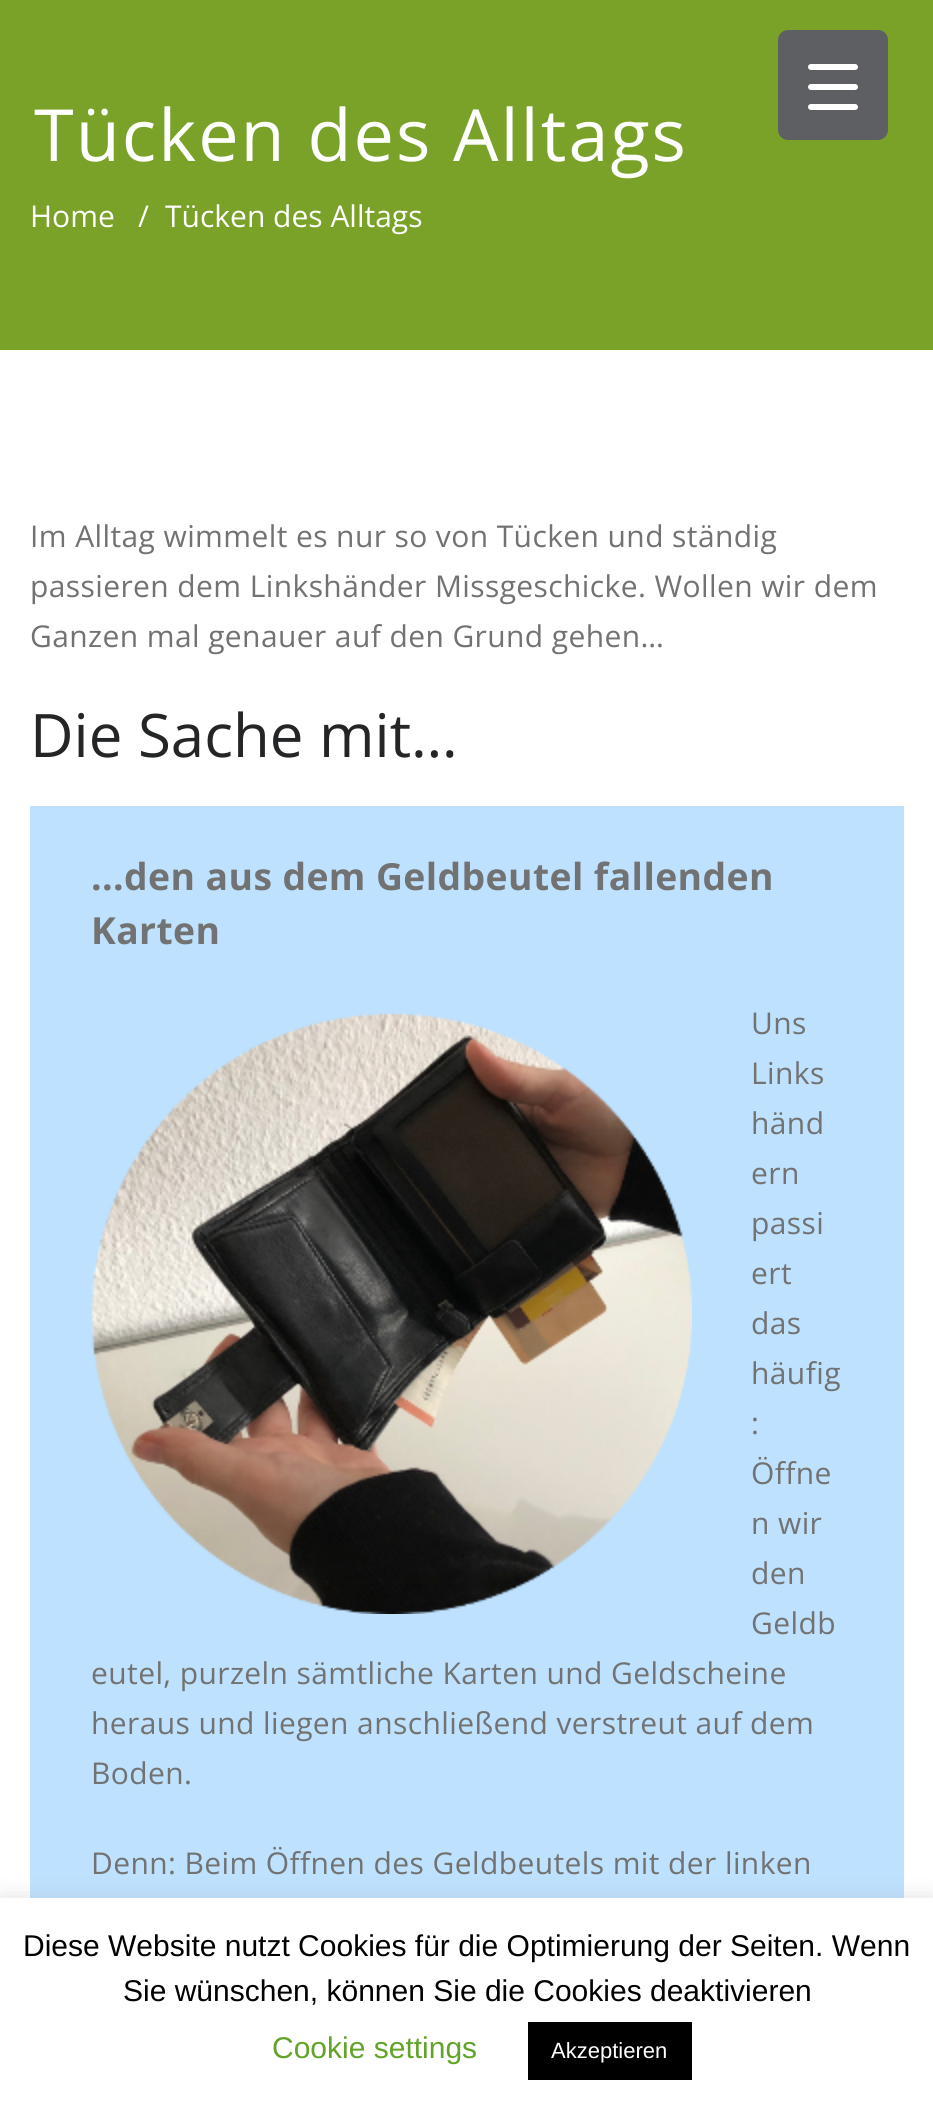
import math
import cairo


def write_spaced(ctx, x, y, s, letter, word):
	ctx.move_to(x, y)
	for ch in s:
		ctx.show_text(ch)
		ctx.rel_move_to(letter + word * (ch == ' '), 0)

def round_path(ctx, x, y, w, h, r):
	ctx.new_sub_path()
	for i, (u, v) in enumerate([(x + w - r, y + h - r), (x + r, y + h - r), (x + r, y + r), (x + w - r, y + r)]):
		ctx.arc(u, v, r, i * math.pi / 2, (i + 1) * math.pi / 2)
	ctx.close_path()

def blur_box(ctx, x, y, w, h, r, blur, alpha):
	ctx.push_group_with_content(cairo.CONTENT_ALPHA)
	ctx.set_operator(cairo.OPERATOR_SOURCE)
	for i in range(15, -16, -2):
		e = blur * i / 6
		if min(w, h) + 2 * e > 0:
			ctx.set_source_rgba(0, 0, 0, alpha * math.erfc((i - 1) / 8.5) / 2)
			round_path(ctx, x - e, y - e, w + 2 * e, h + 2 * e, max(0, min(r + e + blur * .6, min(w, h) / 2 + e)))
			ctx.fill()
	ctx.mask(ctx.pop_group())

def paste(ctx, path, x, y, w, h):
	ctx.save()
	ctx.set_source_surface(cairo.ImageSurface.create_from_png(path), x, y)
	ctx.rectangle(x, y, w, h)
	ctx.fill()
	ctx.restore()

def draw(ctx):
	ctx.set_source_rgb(1, 1, 1)
	ctx.paint()
	ctx.set_source_rgb(0.478, 0.635, 0.157)
	ctx.rectangle(0, 0, 933, 350)
	ctx.fill()
	ctx.set_source_rgb(0.369, 0.373, 0.388)
	round_path(ctx, 778, 30, 110, 110, 10)
	ctx.fill()
	ctx.set_source_rgb(1, 1, 1)
	round_path(ctx, 808, 84, 50, 6, 3)
	ctx.fill()
	round_path(ctx, 808, 64, 50, 6, 3)
	ctx.fill()
	round_path(ctx, 808, 104, 50, 6, 3)
	ctx.fill()
	ctx.select_font_face('Open Sans')
	ctx.set_font_size(72)
	write_spaced(ctx, 34, 161, 'Tücken des Alltags', 2, 0)
	ctx.set_font_size(30)
	for x, y, s in [
		(30, 227, 'Home'),
		(138, 227, '/'),
		(165, 227, 'Tücken des Alltags'),
	]:
		ctx.move_to(x, y)
		ctx.show_text(s)
	ctx.set_source_rgb(0.447, 0.447, 0.447)
	for x, y, s in [
		(30, 547, 'Im Alltag wimmelt es nur so von Tücken und ständig'),
		(30, 597, 'passieren dem Linkshänder Missgeschicke. Wollen wir dem'),
		(30, 647, 'Ganzen mal genauer auf den Grund gehen…'),
	]:
		write_spaced(ctx, x, y, s, 0.4, 0)
	ctx.set_font_size(60)
	ctx.set_source_rgb(0.141, 0.145, 0.149)
	ctx.move_to(30, 757)
	ctx.show_text('Die Sache mit…')
	ctx.set_source_rgb(0.741, 0.882, 1)
	ctx.rectangle(30, 806, 874, 1092)
	ctx.fill()
	ctx.select_font_face('Open Sans', cairo.FONT_SLANT_NORMAL, cairo.FONT_WEIGHT_BOLD)
	ctx.set_font_size(37.3)
	ctx.set_source_rgb(0.447, 0.447, 0.447)
	write_spaced(ctx, 91, 890, '...den aus dem Geldbeutel fallenden', 0.4, 0)
	write_spaced(ctx, 91, 944, 'Karten', 0.4, 0)
	paste(ctx, 'media/1.png', 91, 1013, 601, 601)
	ctx.select_font_face('Open Sans')
	ctx.set_font_size(30)
	for x, y, s in [
		(751, 1034, 'Uns'),
		(751, 1084, 'Links'),
		(751, 1134, 'händ'),
		(751, 1184, 'ern'),
		(751, 1234, 'passi'),
		(751, 1284, 'ert'),
		(751, 1334, 'das'),
		(751, 1384, 'häufig'),
		(751, 1434, ':'),
		(751, 1484, 'Öffne'),
		(751, 1534, 'n wir'),
		(751, 1584, 'den'),
		(751, 1634, 'Geldb'),
		(91, 1684, 'eutel, purzeln sämtliche Karten und Geldscheine'),
		(91, 1734, 'heraus und liegen anschließend verstreut auf dem'),
		(91, 1784, 'Boden.'),
		(91, 1874, 'Denn: Beim Öffnen des Geldbeutels mit der linken'),
	]:
		write_spaced(ctx, x, y, s, 0.4, 0)
	ctx.set_source_rgb(0.675, 0.671, 0.671)
	blur_box(ctx, 0, 1896, 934, 216, 0, 10, 0.3)
	ctx.set_source_rgb(1, 1, 1)
	ctx.rectangle(0, 1898, 933, 215)
	ctx.fill()
	ctx.select_font_face('Liberation Sans')
	ctx.set_source_rgb(0, 0, 0)
	ctx.move_to(23, 1956)
	ctx.show_text('Diese Website nutzt Cookies für die Optimierung der Seiten. Wenn')
	ctx.move_to(123, 2001)
	ctx.show_text('Sie wünschen, können Sie die Cookies deaktivieren')
	ctx.set_source_rgb(0.384, 0.639, 0.161)
	ctx.move_to(272, 2058)
	ctx.show_text('Cookie settings')
	ctx.set_source_rgb(0, 0, 0)
	ctx.rectangle(528, 2022, 164, 58)
	ctx.fill()
	ctx.set_font_size(22)
	ctx.set_source_rgb(1, 1, 1)
	ctx.move_to(551, 2058)
	ctx.show_text('Akzeptieren')


surface = cairo.ImageSurface(cairo.FORMAT_RGB24, 933, 2113)
ctx = cairo.Context(surface)
options = cairo.FontOptions()
options.set_hint_metrics(cairo.HINT_METRICS_OFF)
options.set_hint_style(cairo.HINT_STYLE_NONE)
ctx.set_font_options(options)
ctx.set_miter_limit(4)
draw(ctx)
surface.write_to_png('image.png')
